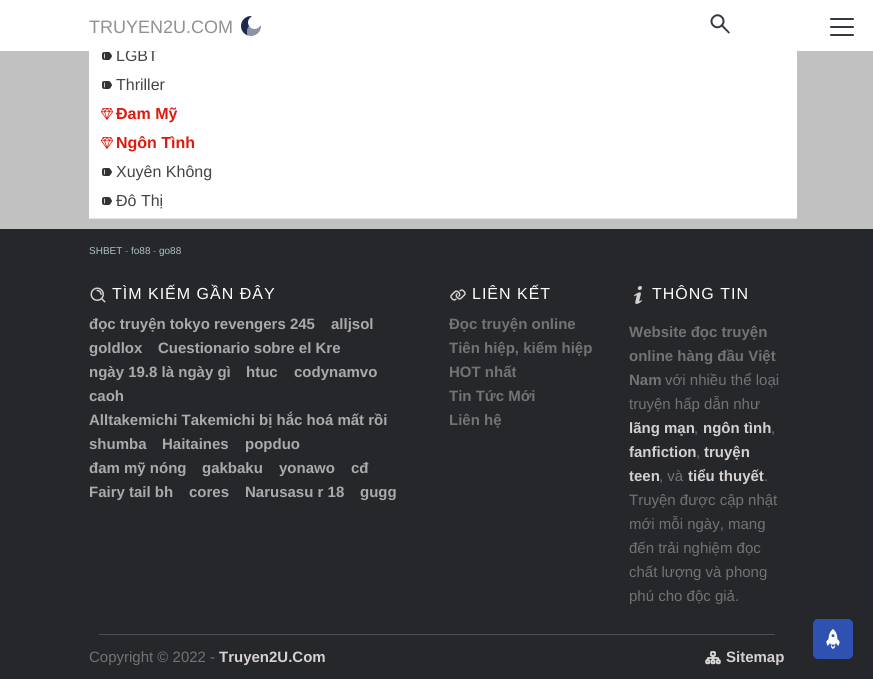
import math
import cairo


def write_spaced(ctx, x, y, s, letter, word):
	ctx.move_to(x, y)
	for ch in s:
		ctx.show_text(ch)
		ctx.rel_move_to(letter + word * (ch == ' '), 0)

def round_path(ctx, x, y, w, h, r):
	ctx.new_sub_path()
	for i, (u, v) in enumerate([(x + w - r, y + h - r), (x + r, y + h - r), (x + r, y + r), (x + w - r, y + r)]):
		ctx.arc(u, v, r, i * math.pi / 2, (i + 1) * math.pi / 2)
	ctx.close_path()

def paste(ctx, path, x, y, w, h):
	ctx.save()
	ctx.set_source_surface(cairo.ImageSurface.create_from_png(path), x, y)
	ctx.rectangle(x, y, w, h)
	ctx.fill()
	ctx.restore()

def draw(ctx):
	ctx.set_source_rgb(0.757, 0.757, 0.757)
	ctx.paint()
	ctx.set_source_rgb(1, 1, 1)
	ctx.rectangle(89, 51, 708, 167)
	ctx.fill()
	ctx.select_font_face('Liberation Sans')
	ctx.set_font_size(16)
	ctx.set_source_rgb(0.267, 0.267, 0.267)
	ctx.move_to(116, 61)
	ctx.show_text('LGBT')
	ctx.set_source_rgb(1, 1, 1)
	ctx.rectangle(0, 0, 873, 51)
	ctx.fill()
	ctx.set_font_size(18)
	ctx.set_source_rgb(0.569, 0.569, 0.573)
	ctx.move_to(89, 33)
	ctx.show_text('TRUYEN2U.COM')
	paste(ctx, 'media/1.png', 241, 16, 20, 20)
	ctx.set_source_rgb(0.204, 0.227, 0.251)
	round_path(ctx, 830, 34, 24, 2, 1)
	ctx.fill()
	round_path(ctx, 830, 26, 24, 2, 1)
	ctx.fill()
	round_path(ctx, 830, 18, 24, 2, 1)
	ctx.fill()
	ctx.new_path()
	ctx.move_to(713.5, 17)
	ctx.curve_to(719, 11.5, 727.5, 20, 721.5, 25.5)
	ctx.curve_to(716, 31, 707.5, 22.5, 713.5, 17)
	ctx.close_path()
	ctx.stroke()
	ctx.new_path()
	ctx.move_to(721, 26)
	ctx.line_to(722.5, 24.5)
	ctx.line_to(729.5, 32)
	ctx.curve_to(730.5, 33, 729, 34, 728, 33)
	ctx.close_path()
	ctx.fill()
	ctx.set_source_rgb(0.898, 0.902, 0.914)
	ctx.rectangle(89, 218, 708, 1)
	ctx.fill()
	paste(ctx, 'media/2.png', 102, 52, 10, 8)
	paste(ctx, 'media/2.png', 102, 81, 10, 8)
	ctx.set_font_size(16)
	ctx.set_source_rgb(0.267, 0.267, 0.267)
	ctx.move_to(116, 90)
	ctx.show_text('Thriller')
	paste(ctx, 'media/3.png', 101, 108, 12, 12)
	ctx.select_font_face('Liberation Sans', cairo.FONT_SLANT_NORMAL, cairo.FONT_WEIGHT_BOLD)
	ctx.set_source_rgb(0.875, 0.102, 0.047)
	ctx.move_to(116, 119)
	ctx.show_text('Đam Mỹ')
	paste(ctx, 'media/3.png', 101, 137, 12, 12)
	ctx.move_to(116, 148)
	ctx.show_text('Ngôn Tình')
	paste(ctx, 'media/2.png', 102, 168, 10, 8)
	ctx.select_font_face('Liberation Sans')
	ctx.set_source_rgb(0.267, 0.267, 0.267)
	ctx.move_to(116, 177)
	ctx.show_text('Xuyên Không')
	paste(ctx, 'media/2.png', 102, 197, 10, 8)
	ctx.move_to(116, 206)
	ctx.show_text('Đô Thị')
	ctx.set_source_rgb(0.149, 0.153, 0.169)
	ctx.rectangle(0, 229, 873, 450)
	ctx.fill()
	ctx.set_font_size(10)
	ctx.set_source_rgb(0.675, 0.757, 0.749)
	ctx.move_to(89, 254)
	ctx.show_text('SHBET')
	ctx.set_source_rgb(0.502, 0.502, 0.502)
	ctx.move_to(125, 254)
	ctx.show_text('-')
	ctx.set_source_rgb(0.675, 0.757, 0.749)
	ctx.move_to(131, 254)
	ctx.show_text('fo88')
	ctx.set_source_rgb(0.502, 0.502, 0.502)
	ctx.move_to(153, 254)
	ctx.show_text('-')
	ctx.set_source_rgb(0.675, 0.757, 0.749)
	ctx.move_to(159, 254)
	ctx.show_text('go88')
	paste(ctx, 'media/4.png', 90, 287, 16, 16)
	ctx.set_font_size(16)
	ctx.set_source_rgb(1, 1, 1)
	write_spaced(ctx, 112, 299, 'TÌM KIẾM GẦN ĐÂY', 1, 0)
	ctx.select_font_face('Liberation Sans', cairo.FONT_SLANT_NORMAL, cairo.FONT_WEIGHT_BOLD)
	ctx.set_font_size(15)
	ctx.set_source_rgb(0.667, 0.667, 0.667)
	for x, y, s in [
		(89, 329, 'đọc truyện tokyo revengers 245'),
		(331, 329, 'alljsol'),
		(89, 353, 'goldlox'),
		(158, 353, 'Cuestionario sobre el Kre'),
		(89, 377, 'ngày 19.8 là ngày gì'),
		(246, 377, 'htuc'),
		(294, 377, 'codynamvo'),
		(89, 401, 'caoh'),
		(89, 425, 'Alltakemichi Takemichi bị hắc hoá mất rồi'),
		(89, 449, 'shumba'),
		(162, 449, 'Haitaines'),
		(245, 449, 'popduo'),
		(89, 473, 'đam mỹ nóng'),
		(202, 473, 'gakbaku'),
		(279, 473, 'yonawo'),
		(351, 473, 'cđ'),
		(89, 497, 'Fairy tail bh'),
		(189, 497, 'cores'),
		(245, 497, 'Narusasu r 18'),
		(360, 497, 'gugg'),
	]:
		ctx.move_to(x, y)
		ctx.show_text(s)
	paste(ctx, 'media/5.png', 450, 289, 16, 12)
	ctx.select_font_face('Liberation Sans')
	ctx.set_font_size(16)
	ctx.set_source_rgb(1, 1, 1)
	write_spaced(ctx, 472, 299, 'LIÊN KẾT', 1, 0)
	ctx.select_font_face('Liberation Sans', cairo.FONT_SLANT_NORMAL, cairo.FONT_WEIGHT_BOLD)
	ctx.set_font_size(15)
	ctx.set_source_rgb(0.451, 0.451, 0.451)
	for x, y, s in [
		(449, 329, 'Đọc truyện online'),
		(449, 353, 'Tiên hiệp, kiếm hiệp'),
		(449, 377, 'HOT nhất'),
		(449, 401, 'Tin Tức Mới'),
		(449, 425, 'Liên hệ'),
	]:
		ctx.move_to(x, y)
		ctx.show_text(s)
	paste(ctx, 'media/6.png', 634, 286, 9, 18)
	ctx.select_font_face('Liberation Sans')
	ctx.set_font_size(16)
	ctx.set_source_rgb(1, 1, 1)
	write_spaced(ctx, 652, 299, 'THÔNG TIN', 1, 0)
	ctx.select_font_face('Liberation Sans', cairo.FONT_SLANT_NORMAL, cairo.FONT_WEIGHT_BOLD)
	ctx.set_font_size(15)
	ctx.set_source_rgb(0.451, 0.451, 0.451)
	for x, y, s in [
		(629, 337, 'Website đọc truyện'),
		(629, 361, 'online hàng đầu Việt'),
		(629, 385, 'Nam'),
	]:
		ctx.move_to(x, y)
		ctx.show_text(s)
	ctx.select_font_face('Liberation Sans')
	ctx.move_to(665, 385)
	ctx.show_text('với nhiều thể loại')
	ctx.move_to(629, 409)
	ctx.show_text('truyện hấp dẫn như')
	ctx.select_font_face('Liberation Sans', cairo.FONT_SLANT_NORMAL, cairo.FONT_WEIGHT_BOLD)
	ctx.set_source_rgb(0.831, 0.816, 0.816)
	ctx.move_to(629, 433)
	ctx.show_text('lãng mạn')
	ctx.select_font_face('Liberation Sans')
	ctx.set_source_rgb(0.451, 0.451, 0.451)
	ctx.move_to(694, 433)
	ctx.show_text(',')
	ctx.select_font_face('Liberation Sans', cairo.FONT_SLANT_NORMAL, cairo.FONT_WEIGHT_BOLD)
	ctx.set_source_rgb(0.831, 0.816, 0.816)
	ctx.move_to(703, 433)
	ctx.show_text('ngôn tình')
	ctx.select_font_face('Liberation Sans')
	ctx.set_source_rgb(0.451, 0.451, 0.451)
	ctx.move_to(771, 433)
	ctx.show_text(',')
	ctx.select_font_face('Liberation Sans', cairo.FONT_SLANT_NORMAL, cairo.FONT_WEIGHT_BOLD)
	ctx.set_source_rgb(0.831, 0.816, 0.816)
	ctx.move_to(629, 457)
	ctx.show_text('fanfiction')
	ctx.select_font_face('Liberation Sans')
	ctx.set_source_rgb(0.451, 0.451, 0.451)
	ctx.move_to(696, 457)
	ctx.show_text(',')
	ctx.select_font_face('Liberation Sans', cairo.FONT_SLANT_NORMAL, cairo.FONT_WEIGHT_BOLD)
	ctx.set_source_rgb(0.831, 0.816, 0.816)
	ctx.move_to(704, 457)
	ctx.show_text('truyện')
	ctx.move_to(629, 481)
	ctx.show_text('teen')
	ctx.select_font_face('Liberation Sans')
	ctx.set_source_rgb(0.451, 0.451, 0.451)
	ctx.move_to(659, 481)
	ctx.show_text(', và')
	ctx.select_font_face('Liberation Sans', cairo.FONT_SLANT_NORMAL, cairo.FONT_WEIGHT_BOLD)
	ctx.set_source_rgb(0.831, 0.816, 0.816)
	ctx.move_to(688, 481)
	ctx.show_text('tiểu thuyết')
	ctx.select_font_face('Liberation Sans')
	ctx.set_source_rgb(0.451, 0.451, 0.451)
	for x, y, s in [
		(764, 481, '.'),
		(629, 505, 'Truyện được cập nhật'),
		(629, 529, 'mới mỗi ngày, mang'),
		(629, 553, 'đến trải nghiệm đọc'),
		(629, 577, 'chất lượng và phong'),
		(629, 601, 'phú cho độc giả.'),
	]:
		ctx.move_to(x, y)
		ctx.show_text(s)
	ctx.set_source_rgb(0.302, 0.302, 0.31)
	ctx.rectangle(99, 634, 676, 1)
	ctx.fill()
	ctx.set_source_rgb(0.451, 0.451, 0.451)
	ctx.move_to(89, 662)
	ctx.show_text('Copyright © 2022 -')
	ctx.select_font_face('Liberation Sans', cairo.FONT_SLANT_NORMAL, cairo.FONT_WEIGHT_BOLD)
	ctx.set_source_rgb(0.831, 0.816, 0.816)
	ctx.move_to(219, 662)
	ctx.show_text('Truyen2U.Com')
	paste(ctx, 'media/7.png', 705, 651, 16, 14)
	ctx.move_to(726, 662)
	ctx.show_text('Sitemap')
	ctx.set_source_rgb(0.184, 0.322, 0.698)
	round_path(ctx, 813, 619, 40, 40, 5)
	ctx.fill()
	paste(ctx, 'media/8.png', 826, 629, 14, 20)


surface = cairo.ImageSurface(cairo.FORMAT_RGB24, 873, 679)
ctx = cairo.Context(surface)
options = cairo.FontOptions()
options.set_hint_metrics(cairo.HINT_METRICS_OFF)
options.set_hint_style(cairo.HINT_STYLE_NONE)
ctx.set_font_options(options)
ctx.set_miter_limit(4)
draw(ctx)
surface.write_to_png('image.png')
